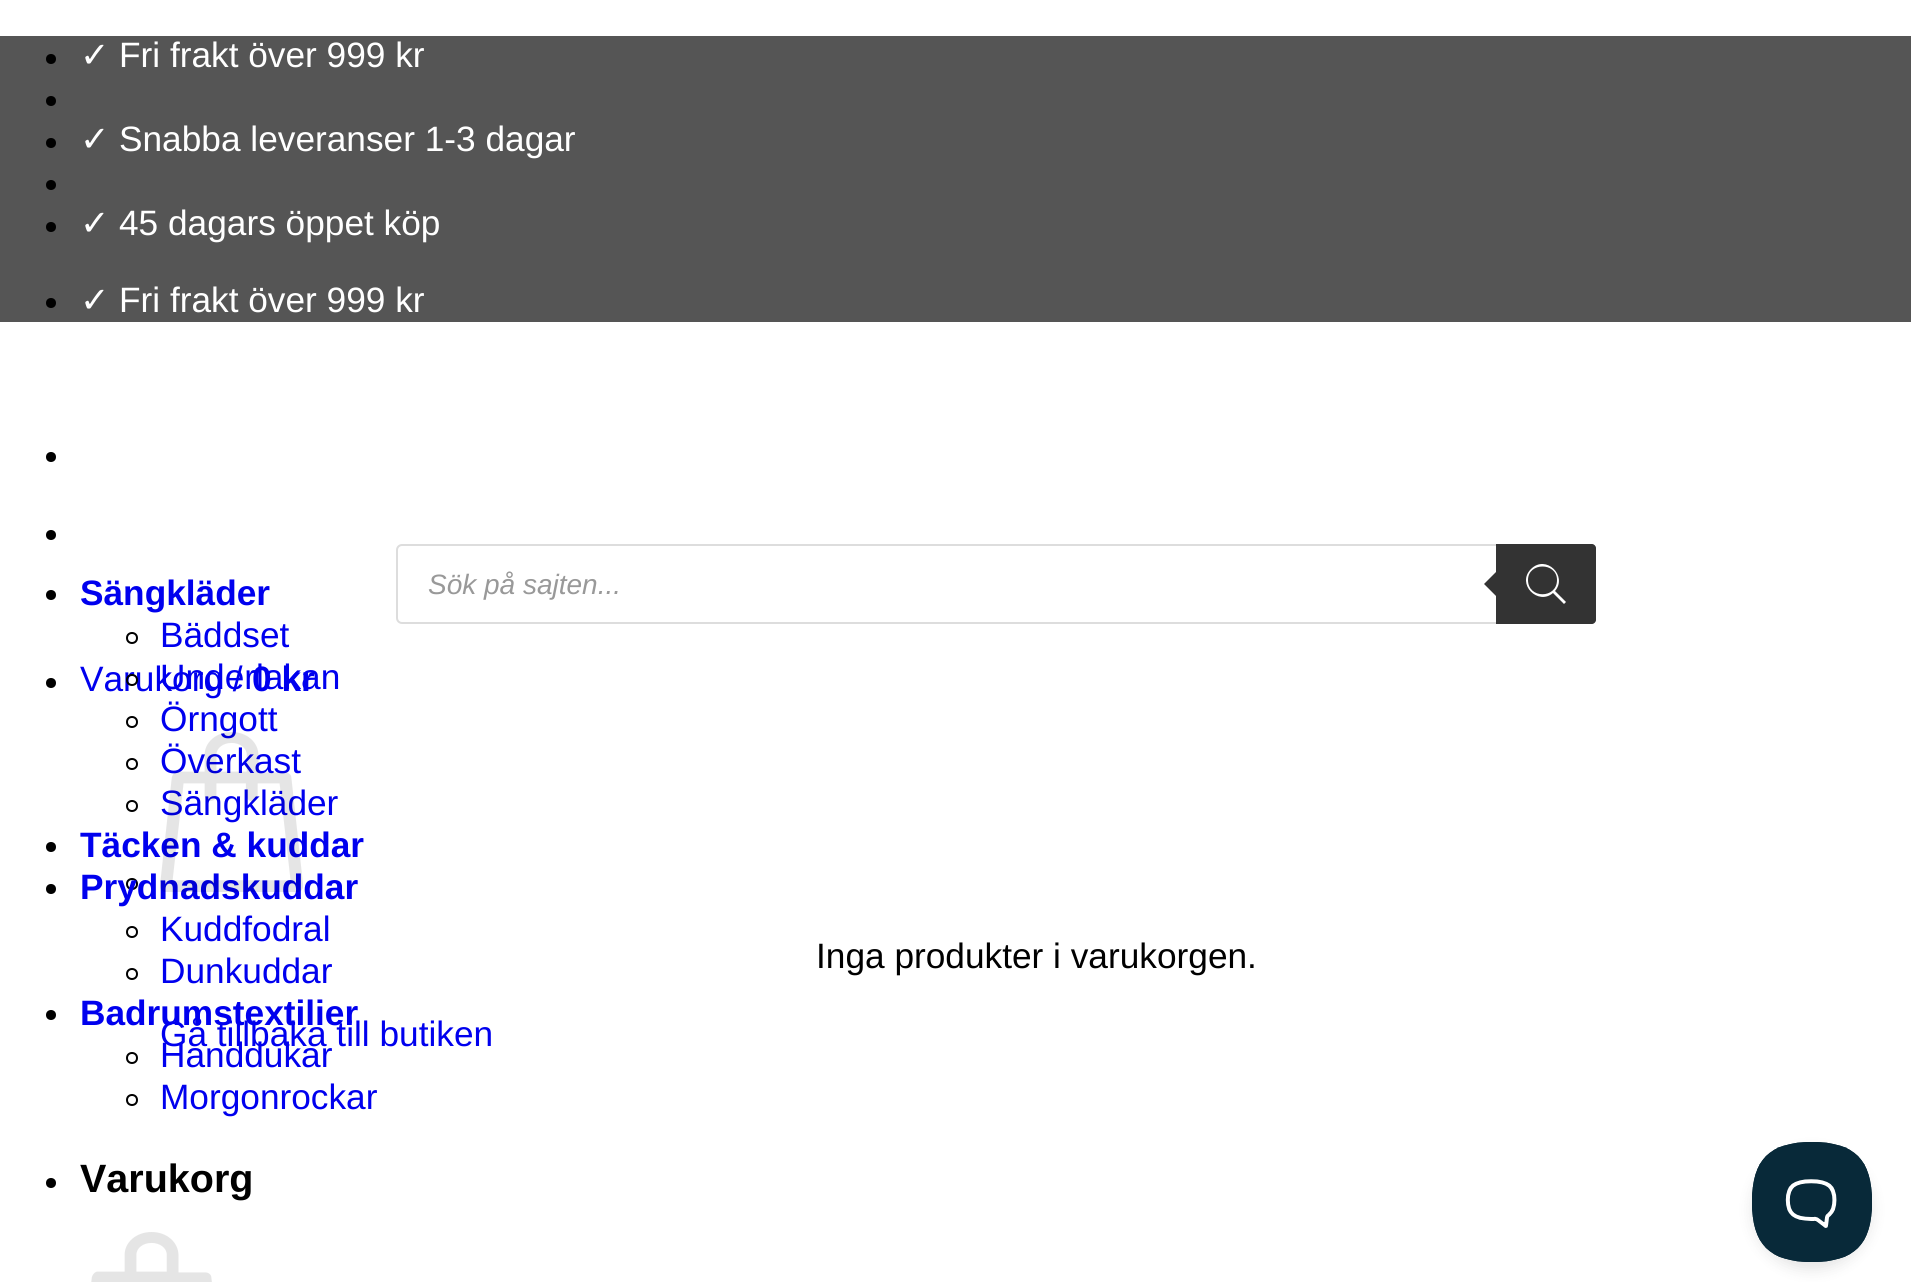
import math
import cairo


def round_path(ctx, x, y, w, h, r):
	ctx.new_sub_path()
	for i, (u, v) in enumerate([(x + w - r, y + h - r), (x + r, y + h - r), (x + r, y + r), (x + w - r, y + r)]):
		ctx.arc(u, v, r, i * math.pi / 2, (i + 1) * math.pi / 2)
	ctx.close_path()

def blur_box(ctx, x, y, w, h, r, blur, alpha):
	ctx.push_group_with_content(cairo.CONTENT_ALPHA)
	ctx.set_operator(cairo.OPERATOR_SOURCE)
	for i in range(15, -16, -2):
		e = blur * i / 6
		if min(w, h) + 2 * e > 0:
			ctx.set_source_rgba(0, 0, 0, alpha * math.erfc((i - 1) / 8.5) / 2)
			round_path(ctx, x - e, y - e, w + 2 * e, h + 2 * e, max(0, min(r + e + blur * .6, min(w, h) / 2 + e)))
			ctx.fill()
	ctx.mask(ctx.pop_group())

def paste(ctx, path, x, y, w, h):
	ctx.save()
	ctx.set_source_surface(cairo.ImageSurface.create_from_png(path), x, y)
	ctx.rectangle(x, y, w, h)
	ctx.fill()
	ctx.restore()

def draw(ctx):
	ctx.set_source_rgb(1, 1, 1)
	ctx.paint()
	ctx.set_source_rgb(0.333, 0.333, 0.333)
	ctx.rectangle(0, 36, 1911, 286)
	ctx.fill()
	ctx.set_source_rgb(0, 0, 0)
	ctx.arc(51, 59, 5, 0, 2 * math.pi)
	ctx.fill()
	ctx.select_font_face('DejaVu Sans')
	ctx.set_font_size(35.25)
	ctx.set_source_rgb(1, 1, 1)
	ctx.move_to(80, 67)
	ctx.show_text('✓')
	ctx.select_font_face('Liberation Sans')
	ctx.move_to(119, 67)
	ctx.show_text('Fri frakt över 999 kr')
	ctx.set_source_rgb(0, 0, 0)
	ctx.new_path()
	ctx.arc(51, 101, 5, 0, 2 * math.pi)
	ctx.fill()
	ctx.arc(51, 143, 5, 0, 2 * math.pi)
	ctx.fill()
	ctx.select_font_face('DejaVu Sans')
	ctx.set_source_rgb(1, 1, 1)
	ctx.move_to(80, 151)
	ctx.show_text('✓')
	ctx.select_font_face('Liberation Sans')
	ctx.move_to(119, 151)
	ctx.show_text('Snabba leveranser 1-3 dagar')
	ctx.set_source_rgb(0, 0, 0)
	ctx.new_path()
	ctx.arc(51, 185, 5, 0, 2 * math.pi)
	ctx.fill()
	ctx.arc(51, 227, 5, 0, 2 * math.pi)
	ctx.fill()
	ctx.select_font_face('DejaVu Sans')
	ctx.set_source_rgb(1, 1, 1)
	ctx.move_to(80, 235)
	ctx.show_text('✓')
	ctx.select_font_face('Liberation Sans')
	ctx.move_to(119, 235)
	ctx.show_text('45 dagars öppet köp')
	ctx.set_source_rgb(0, 0, 0)
	ctx.new_path()
	ctx.arc(51, 303, 5, 0, 2 * math.pi)
	ctx.fill()
	ctx.select_font_face('DejaVu Sans')
	ctx.set_source_rgb(1, 1, 1)
	ctx.move_to(80, 312)
	ctx.show_text('✓')
	ctx.select_font_face('Liberation Sans')
	ctx.move_to(119, 312)
	ctx.show_text('Fri frakt över 999 kr')
	ctx.set_source_rgb(0, 0, 0)
	ctx.new_path()
	ctx.arc(51, 457, 5, 0, 2 * math.pi)
	ctx.fill()
	ctx.arc(51, 535, 5, 0, 2 * math.pi)
	ctx.fill()
	round_path(ctx, 397, 545, 1198, 78, 5)
	ctx.set_source_rgb(0.867, 0.867, 0.867)
	ctx.stroke()
	ctx.select_font_face('Liberation Sans', cairo.FONT_SLANT_ITALIC)
	ctx.set_font_size(28)
	ctx.set_source_rgb(0.6, 0.6, 0.6)
	ctx.move_to(428, 594)
	ctx.show_text('Sök på sajten...')
	ctx.set_source_rgb(0.2, 0.2, 0.2)
	ctx.new_path()
	ctx.move_to(1496, 544)
	ctx.line_to(1592, 544)
	ctx.curve_to(1594, 544, 1596, 546, 1596, 548)
	ctx.line_to(1596, 620)
	ctx.curve_to(1596, 622, 1594, 624, 1592, 624)
	ctx.line_to(1496, 624)
	ctx.close_path()
	ctx.fill()
	ctx.new_path()
	ctx.move_to(1500, 568)
	ctx.line_to(1500, 600)
	ctx.line_to(1484, 584)
	ctx.close_path()
	ctx.fill()
	ctx.set_source_rgb(1, 1, 1)
	ctx.new_path()
	ctx.move_to(1566, 602)
	ctx.line_to(1555, 591)
	ctx.curve_to(1568, 576, 1546, 554, 1531, 569)
	ctx.curve_to(1516, 584, 1538, 606, 1553, 593)
	ctx.line_to(1564, 604)
	ctx.close_path()
	ctx.move_to(1528, 580)
	ctx.curve_to(1528, 562, 1557, 562, 1557, 580)
	ctx.curve_to(1557, 599, 1528, 599, 1528, 580)
	ctx.close_path()
	ctx.fill()
	ctx.set_source_rgb(0, 0, 0)
	ctx.arc(51, 683, 5, 0, 2 * math.pi)
	ctx.fill()
	ctx.select_font_face('Liberation Sans')
	ctx.set_font_size(35.25)
	ctx.set_source_rgb(0, 0, 0.933)
	ctx.move_to(80, 691)
	ctx.show_text('Varukorg /')
	ctx.select_font_face('Liberation Sans', cairo.FONT_SLANT_NORMAL, cairo.FONT_WEIGHT_BOLD)
	ctx.move_to(252, 691)
	ctx.show_text('0 kr')
	ctx.new_path()
	ctx.arc(132, 884, 5, 0, 2 * math.pi)
	ctx.set_source_rgb(0, 0, 0)
	ctx.stroke()
	ctx.select_font_face('Liberation Sans')
	ctx.set_source_rgb(0, 0, 0.933)
	for x, y, s in [
		(160, 731, 'Örngott'),
		(160, 773, 'Överkast'),
		(160, 815, 'Sängkläder'),
	]:
		ctx.move_to(x, y)
		ctx.show_text(s)
	ctx.select_font_face('Liberation Sans', cairo.FONT_SLANT_NORMAL, cairo.FONT_WEIGHT_BOLD)
	ctx.move_to(80, 857)
	ctx.show_text('Täcken & kuddar')
	ctx.move_to(80, 899)
	ctx.show_text('Prydnadskuddar')
	paste(ctx, 'media/1.png', 160, 732, 143, 160)
	ctx.select_font_face('Liberation Sans')
	ctx.set_source_rgb(0, 0, 0)
	ctx.move_to(816, 968)
	ctx.show_text('Inga produkter i varukorgen.')
	ctx.set_source_rgb(0, 0, 0.933)
	ctx.move_to(160, 1046)
	ctx.show_text('Gå tillbaka till butiken')
	ctx.set_source_rgb(0, 0, 0)
	ctx.new_path()
	ctx.arc(51, 1183, 5, 0, 2 * math.pi)
	ctx.fill()
	ctx.select_font_face('Liberation Sans', cairo.FONT_SLANT_NORMAL, cairo.FONT_WEIGHT_BOLD)
	ctx.set_font_size(39.5)
	ctx.move_to(80, 1192)
	ctx.show_text('Varukorg')
	paste(ctx, 'media/2.png', 91, 1232, 121, 50)
	ctx.arc(51, 595, 5, 0, 2 * math.pi)
	ctx.fill()
	ctx.set_font_size(35.25)
	ctx.set_source_rgb(0, 0, 0.933)
	ctx.move_to(80, 605)
	ctx.show_text('Sängkläder')
	ctx.new_path()
	ctx.arc(132, 638, 5, 0, 2 * math.pi)
	ctx.set_source_rgb(0, 0, 0)
	ctx.stroke()
	ctx.select_font_face('Liberation Sans')
	ctx.set_source_rgb(0, 0, 0.933)
	ctx.move_to(160, 647)
	ctx.show_text('Bäddset')
	ctx.new_path()
	ctx.arc(132, 680, 5, 0, 2 * math.pi)
	ctx.set_source_rgb(0, 0, 0)
	ctx.stroke()
	ctx.set_source_rgb(0, 0, 0.933)
	ctx.move_to(160, 689)
	ctx.show_text('Underlakan')
	ctx.new_path()
	ctx.arc(132, 722, 5, 0, 2 * math.pi)
	ctx.set_source_rgb(0, 0, 0)
	ctx.stroke()
	ctx.arc(132, 764, 5, 0, 2 * math.pi)
	ctx.stroke()
	ctx.arc(132, 806, 5, 0, 2 * math.pi)
	ctx.stroke()
	ctx.arc(51, 847, 5, 0, 2 * math.pi)
	ctx.fill()
	ctx.arc(51, 889, 5, 0, 2 * math.pi)
	ctx.fill()
	ctx.arc(132, 932, 5, 0, 2 * math.pi)
	ctx.stroke()
	ctx.set_source_rgb(0, 0, 0.933)
	ctx.move_to(160, 941)
	ctx.show_text('Kuddfodral')
	ctx.new_path()
	ctx.arc(132, 974, 5, 0, 2 * math.pi)
	ctx.set_source_rgb(0, 0, 0)
	ctx.stroke()
	ctx.set_source_rgb(0, 0, 0.933)
	ctx.move_to(160, 983)
	ctx.show_text('Dunkuddar')
	ctx.set_source_rgb(0, 0, 0)
	ctx.new_path()
	ctx.arc(51, 1015, 5, 0, 2 * math.pi)
	ctx.fill()
	ctx.select_font_face('Liberation Sans', cairo.FONT_SLANT_NORMAL, cairo.FONT_WEIGHT_BOLD)
	ctx.set_source_rgb(0, 0, 0.933)
	ctx.move_to(80, 1025)
	ctx.show_text('Badrumstextilier')
	ctx.new_path()
	ctx.arc(132, 1058, 5, 0, 2 * math.pi)
	ctx.set_source_rgb(0, 0, 0)
	ctx.stroke()
	ctx.select_font_face('Liberation Sans')
	ctx.set_source_rgb(0, 0, 0.933)
	ctx.move_to(160, 1067)
	ctx.show_text('Handdukar')
	ctx.new_path()
	ctx.arc(132, 1100, 5, 0, 2 * math.pi)
	ctx.set_source_rgb(0, 0, 0)
	ctx.stroke()
	ctx.set_source_rgb(0, 0, 0.933)
	ctx.move_to(160, 1109)
	ctx.show_text('Morgonrockar')
	ctx.set_source_rgb(0, 0, 0)
	blur_box(ctx, 1752, 1150, 120, 120, 60, 7, 0.1)
	paste(ctx, 'media/3.png', 1752, 1142, 120, 120)


surface = cairo.ImageSurface(cairo.FORMAT_RGB24, 1911, 1282)
ctx = cairo.Context(surface)
options = cairo.FontOptions()
options.set_hint_metrics(cairo.HINT_METRICS_OFF)
options.set_hint_style(cairo.HINT_STYLE_NONE)
ctx.set_font_options(options)
ctx.set_miter_limit(4)
draw(ctx)
surface.write_to_png('image.png')
